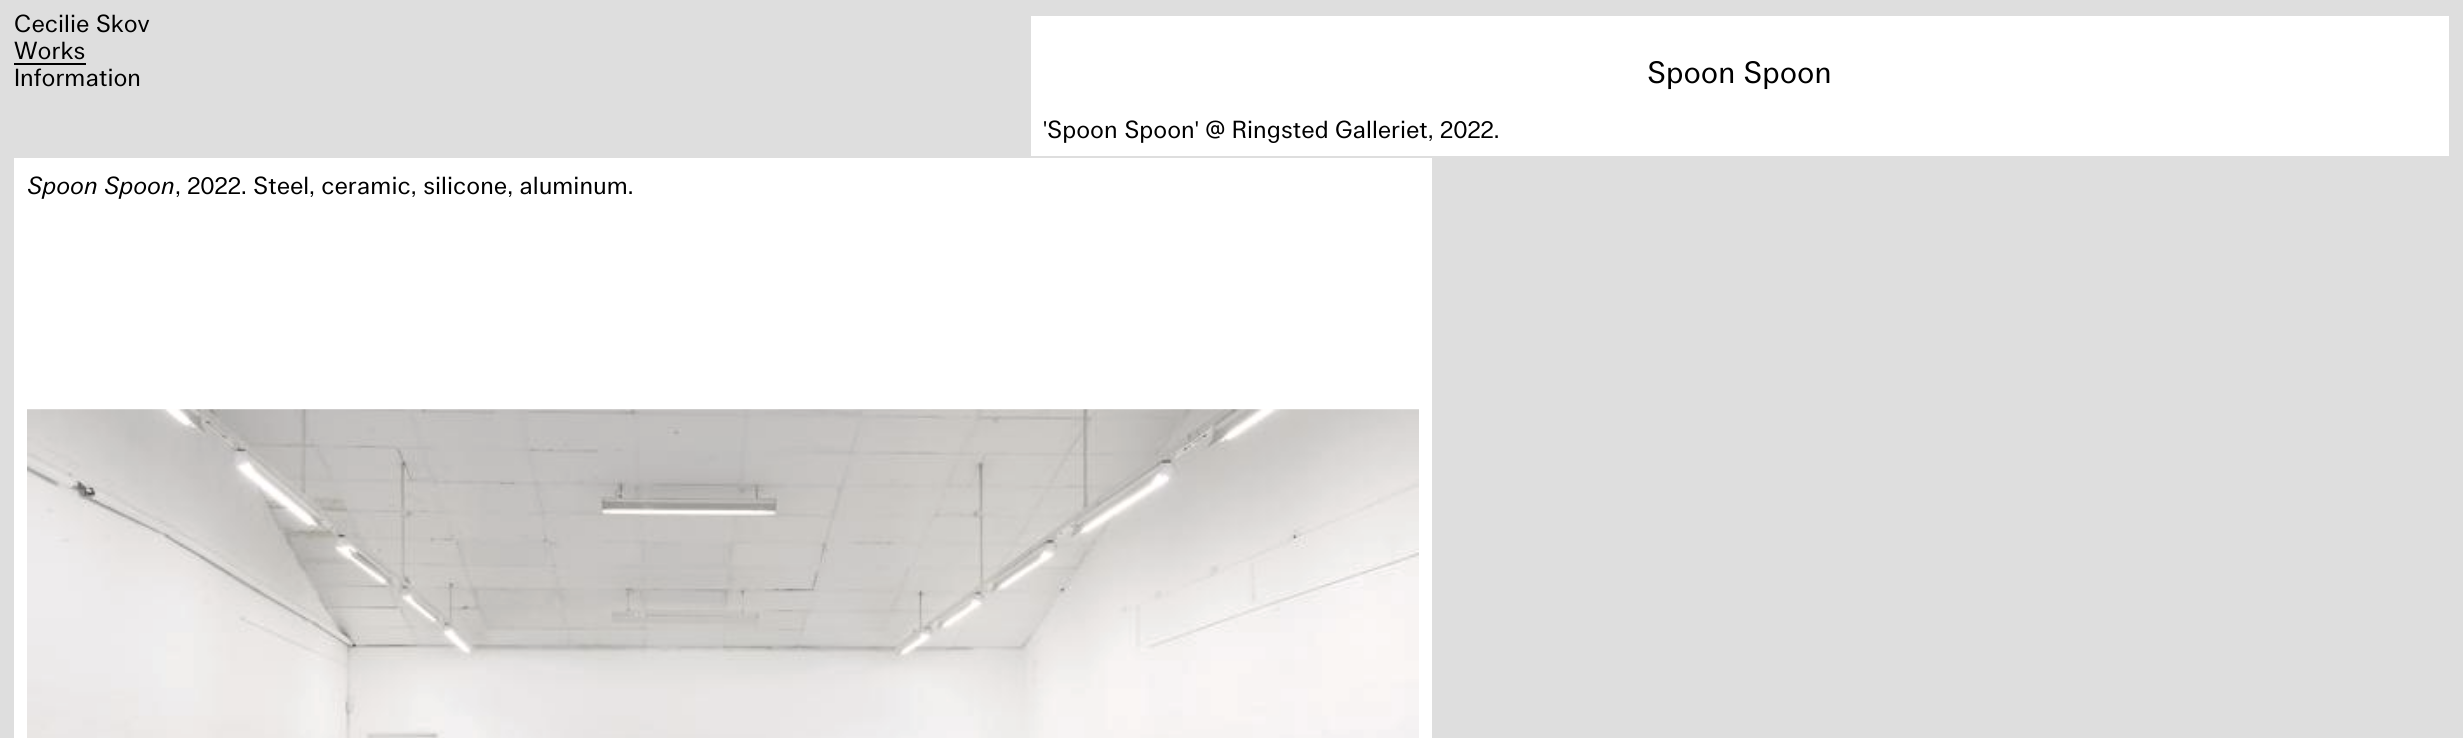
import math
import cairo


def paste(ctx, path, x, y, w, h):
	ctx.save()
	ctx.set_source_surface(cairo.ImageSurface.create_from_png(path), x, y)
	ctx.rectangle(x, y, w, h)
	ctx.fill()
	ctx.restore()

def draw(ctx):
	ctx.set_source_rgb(0.871, 0.871, 0.871)
	ctx.paint()
	ctx.select_font_face('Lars')
	ctx.set_font_size(24)
	ctx.set_source_rgb(0, 0, 0)
	ctx.move_to(14, 32)
	ctx.show_text('Cecilie Skov')
	ctx.move_to(14, 59)
	ctx.show_text('Works')
	ctx.rectangle(14, 63, 72, 2)
	ctx.fill()
	ctx.move_to(14, 86)
	ctx.show_text('Information')
	ctx.set_source_rgb(1, 1, 1)
	ctx.rectangle(1031, 16, 1418, 140)
	ctx.fill()
	ctx.set_font_size(30)
	ctx.set_source_rgb(0, 0, 0)
	ctx.move_to(1647, 83)
	ctx.show_text('Spoon Spoon')
	ctx.set_font_size(24)
	ctx.move_to(1043, 138)
	ctx.show_text('\'Spoon Spoon\' @ Ringsted Galleriet, 2022.')
	ctx.set_source_rgb(1, 1, 1)
	ctx.rectangle(14, 158, 1418, 580)
	ctx.fill()
	ctx.select_font_face('Lars', cairo.FONT_SLANT_ITALIC)
	ctx.set_source_rgb(0, 0, 0)
	ctx.move_to(27, 194)
	ctx.show_text('Spoon Spoon')
	ctx.select_font_face('Lars')
	ctx.move_to(175, 194)
	ctx.show_text(', 2022. Steel, ceramic, silicone, aluminum.')
	paste(ctx, 'media/1.png', 27, 409, 1392, 329)


surface = cairo.ImageSurface(cairo.FORMAT_RGB24, 2463, 738)
ctx = cairo.Context(surface)
options = cairo.FontOptions()
options.set_hint_metrics(cairo.HINT_METRICS_OFF)
options.set_hint_style(cairo.HINT_STYLE_NONE)
ctx.set_font_options(options)
ctx.set_miter_limit(4)
draw(ctx)
surface.write_to_png('image.png')
